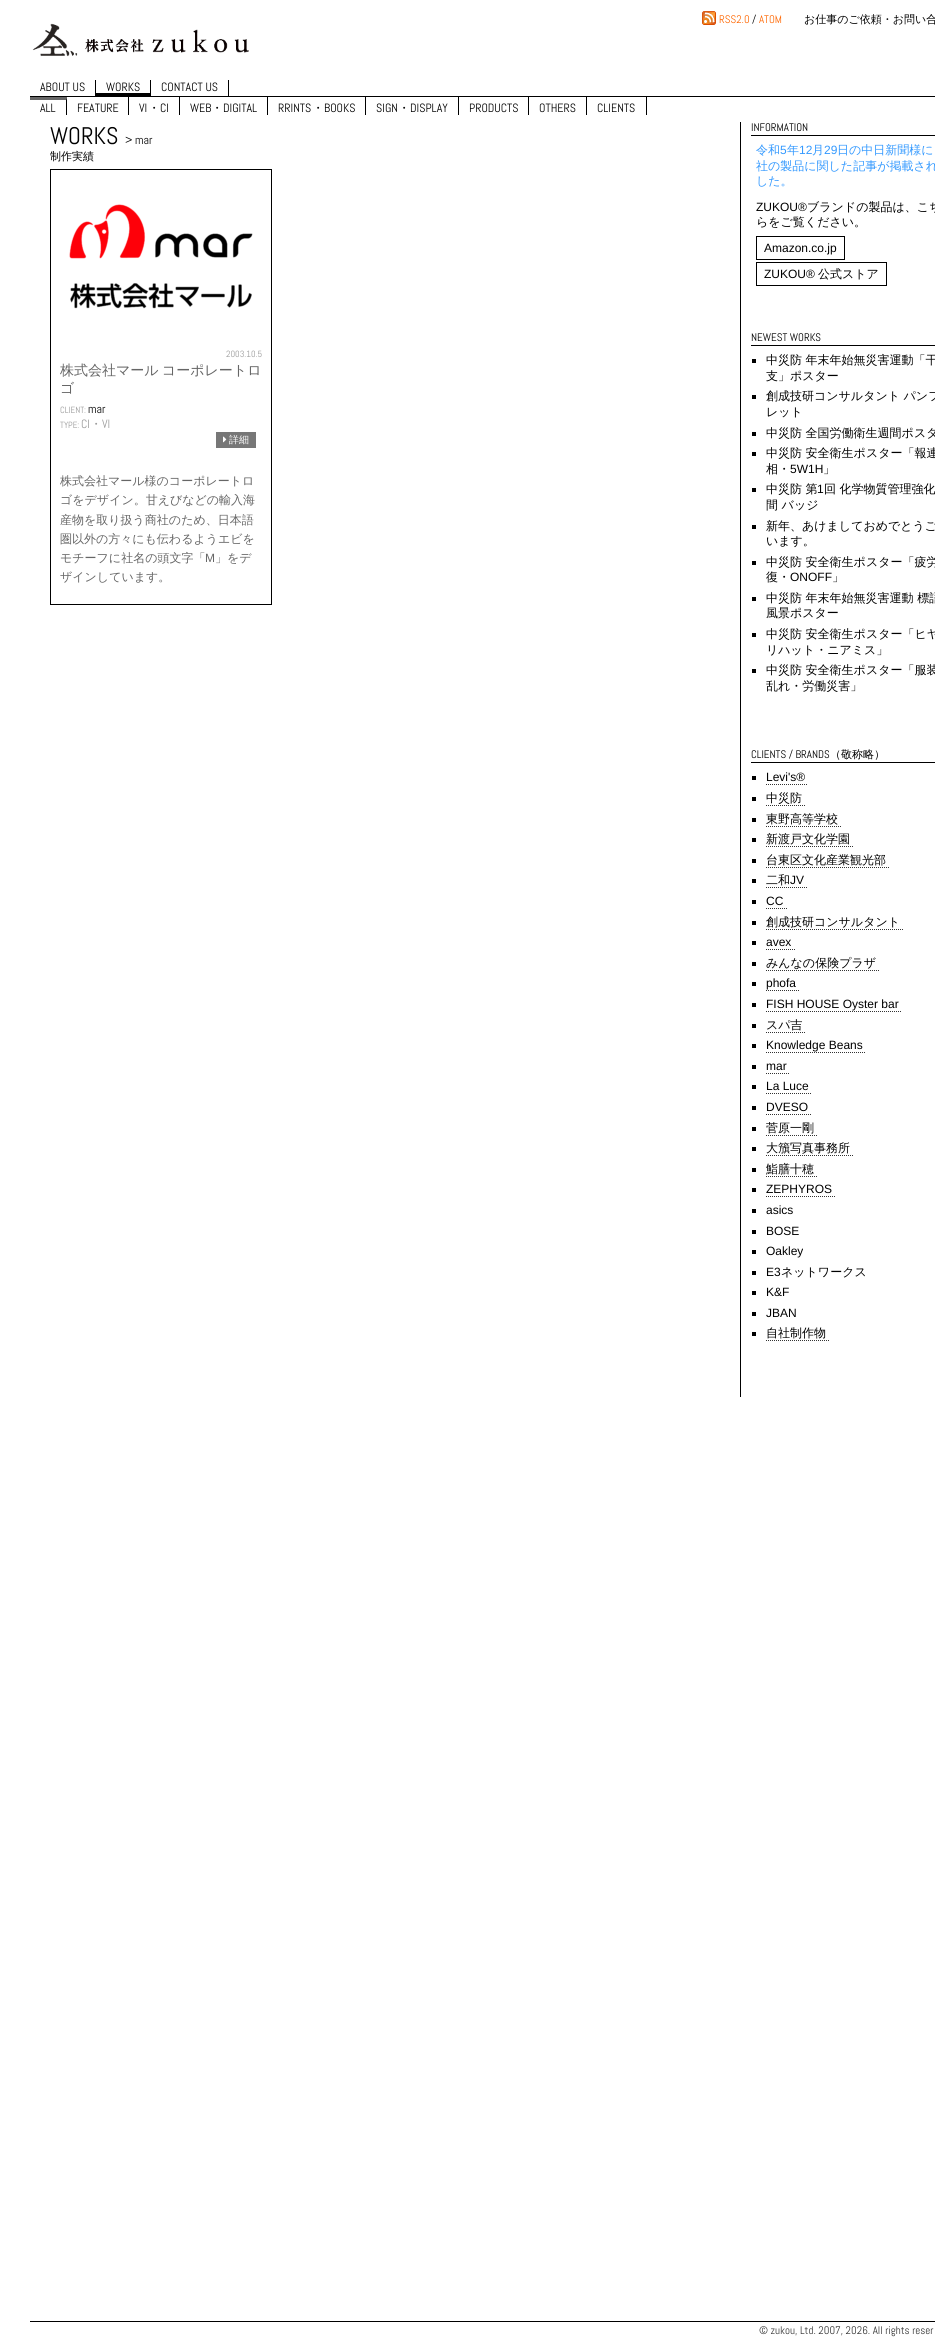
import math
import cairo


def write_spaced(ctx, x, y, s, letter, word):
	ctx.move_to(x, y)
	for ch in s:
		ctx.show_text(ch)
		ctx.rel_move_to(letter + word * (ch == ' '), 0)

def paste(ctx, path, x, y, w, h):
	ctx.save()
	ctx.set_source_surface(cairo.ImageSurface.create_from_png(path), x, y)
	ctx.rectangle(x, y, w, h)
	ctx.fill()
	ctx.restore()

def draw(ctx):
	ctx.set_source_rgb(1, 1, 1)
	ctx.paint()
	paste(ctx, 'media/1.png', 702, 11, 14, 14)
	ctx.select_font_face('Abel')
	ctx.set_font_size(11)
	ctx.set_source_rgb(1, 0.4, 0)
	ctx.move_to(719, 23)
	ctx.show_text('RSS2.0')
	ctx.set_source_rgb(0, 0, 0)
	ctx.move_to(752, 23)
	ctx.show_text('/')
	ctx.set_source_rgb(1, 0.4, 0)
	ctx.move_to(759, 23)
	ctx.show_text('ATOM')
	ctx.select_font_face('WenQuanYi Zen Hei Medium')
	ctx.set_source_rgb(0, 0, 0)
	ctx.move_to(804, 23)
	ctx.show_text('お仕事のご依頼・お問い合')
	paste(ctx, 'media/2.png', 32, 23, 217, 34)
	ctx.rectangle(30, 96, 905, 1)
	ctx.fill()
	ctx.rectangle(95, 80, 1, 16)
	ctx.fill()
	ctx.select_font_face('Abel')
	ctx.set_font_size(12)
	ctx.move_to(40, 91)
	ctx.show_text('ABOUT US')
	ctx.rectangle(150, 80, 1, 16)
	ctx.fill()
	ctx.rectangle(96, 93, 55, 3)
	ctx.fill()
	ctx.move_to(106, 91)
	ctx.show_text('WORKS')
	ctx.rectangle(228, 80, 1, 16)
	ctx.fill()
	ctx.move_to(161, 91)
	ctx.show_text('CONTACT US')
	ctx.set_source_rgb(0.4, 0.4, 0.4)
	ctx.new_path()
	ctx.move_to(30, 97)
	ctx.line_to(67, 97)
	ctx.line_to(66, 100)
	ctx.line_to(30, 100)
	ctx.close_path()
	ctx.fill()
	ctx.set_source_rgb(0, 0, 0)
	ctx.new_path()
	ctx.move_to(67, 97)
	ctx.line_to(67, 115)
	ctx.line_to(66, 115)
	ctx.line_to(66, 100)
	ctx.close_path()
	ctx.fill()
	ctx.move_to(40, 112)
	ctx.show_text('ALL')
	ctx.rectangle(128, 97, 1, 18)
	ctx.fill()
	ctx.move_to(77, 112)
	ctx.show_text('FEATURE')
	ctx.rectangle(179, 97, 1, 18)
	ctx.fill()
	ctx.move_to(139, 112)
	ctx.show_text('VI')
	ctx.select_font_face('WenQuanYi Zen Hei Medium')
	ctx.move_to(148, 112)
	ctx.show_text('・')
	ctx.select_font_face('Abel')
	ctx.move_to(160, 112)
	ctx.show_text('CI')
	ctx.rectangle(267, 97, 1, 18)
	ctx.fill()
	ctx.move_to(190, 112)
	ctx.show_text('WEB')
	ctx.select_font_face('WenQuanYi Zen Hei Medium')
	ctx.move_to(211, 112)
	ctx.show_text('・')
	ctx.select_font_face('Abel')
	ctx.move_to(223, 112)
	ctx.show_text('DIGITAL')
	ctx.rectangle(365, 97, 1, 18)
	ctx.fill()
	ctx.move_to(278, 112)
	ctx.show_text('RRINTS')
	ctx.select_font_face('WenQuanYi Zen Hei Medium')
	ctx.move_to(312, 112)
	ctx.show_text('・')
	ctx.select_font_face('Abel')
	ctx.move_to(324, 112)
	ctx.show_text('BOOKS')
	ctx.rectangle(458, 97, 1, 18)
	ctx.fill()
	ctx.move_to(376, 112)
	ctx.show_text('SIGN')
	ctx.select_font_face('WenQuanYi Zen Hei Medium')
	ctx.move_to(398, 112)
	ctx.show_text('・')
	ctx.select_font_face('Abel')
	ctx.move_to(410, 112)
	ctx.show_text('DISPLAY')
	ctx.rectangle(528, 97, 1, 18)
	ctx.fill()
	ctx.move_to(469, 112)
	ctx.show_text('PRODUCTS')
	ctx.rectangle(586, 97, 1, 18)
	ctx.fill()
	ctx.move_to(539, 112)
	ctx.show_text('OTHERS')
	ctx.rectangle(646, 97, 1, 18)
	ctx.fill()
	ctx.move_to(597, 112)
	ctx.show_text('CLIENTS')
	ctx.set_font_size(24)
	ctx.move_to(50, 144)
	ctx.show_text('WORKS')
	ctx.set_font_size(12)
	ctx.move_to(125, 144)
	ctx.show_text('> mar')
	ctx.select_font_face('WenQuanYi Zen Hei Medium')
	ctx.set_font_size(11)
	ctx.move_to(50, 160)
	ctx.show_text('制作実績')
	ctx.rectangle(50.5, 169.5, 221, 435)
	ctx.set_line_width(1)
	ctx.stroke()
	paste(ctx, 'media/3.png', 69, 204, 184, 105)
	ctx.select_font_face('Abel')
	ctx.set_font_size(9)
	ctx.set_source_rgb(0.6, 0.6, 0.6)
	ctx.move_to(226, 357)
	ctx.show_text('2003.10.5')
	ctx.select_font_face('WenQuanYi Zen Hei Medium')
	ctx.set_font_size(14)
	ctx.set_source_rgb(0.4, 0.4, 0.4)
	write_spaced(ctx, 60, 375, '株式会社マール コーポレートロ', 0, -1)
	ctx.move_to(60, 393)
	ctx.show_text('ゴ')
	ctx.select_font_face('Abel')
	ctx.set_font_size(9)
	ctx.set_source_rgb(0.6, 0.6, 0.6)
	ctx.move_to(60, 413)
	ctx.show_text('CLIENT:')
	ctx.set_font_size(12)
	ctx.set_source_rgb(0, 0, 0)
	ctx.move_to(88, 413)
	ctx.show_text('mar')
	ctx.set_font_size(9)
	ctx.set_source_rgb(0.6, 0.6, 0.6)
	ctx.move_to(60, 428)
	ctx.show_text('TYPE:')
	ctx.set_font_size(12)
	ctx.move_to(81, 428)
	ctx.show_text('CI')
	ctx.select_font_face('WenQuanYi Zen Hei Medium')
	ctx.move_to(90, 428)
	ctx.show_text('・')
	ctx.select_font_face('Abel')
	ctx.move_to(102, 428)
	ctx.show_text('VI')
	ctx.set_source_rgb(0.467, 0.467, 0.467)
	ctx.rectangle(216, 432, 40, 16)
	ctx.fill()
	paste(ctx, 'media/4.png', 223, 436, 4, 7)
	ctx.select_font_face('WenQuanYi Zen Hei Medium')
	ctx.set_font_size(10)
	ctx.set_source_rgb(1, 1, 1)
	ctx.move_to(229, 443)
	ctx.show_text('詳細')
	ctx.set_font_size(12)
	ctx.set_source_rgb(0.4, 0.4, 0.4)
	for x, y, s in [
		(60, 485, '株式会社マール様のコーポレートロ'),
		(60, 504, 'ゴをデザイン。甘えびなどの輸入海'),
		(60, 524, '産物を取り扱う商社のため、日本語'),
		(60, 543, '圏以外の方々にも伝わるようエビを'),
		(60, 562, 'モチーフに社名の頭文字「'),
	]:
		ctx.move_to(x, y)
		ctx.show_text(s)
	ctx.select_font_face('Liberation Sans')
	ctx.move_to(205, 562)
	ctx.show_text('M')
	ctx.select_font_face('WenQuanYi Zen Hei Medium')
	ctx.move_to(215, 562)
	ctx.show_text('」をデ')
	ctx.move_to(60, 581)
	ctx.show_text('ザインしています。')
	ctx.set_source_rgb(0, 0, 0)
	ctx.rectangle(740, 122, 1, 1275)
	ctx.fill()
	ctx.rectangle(751, 135, 184, 1)
	ctx.fill()
	ctx.select_font_face('Abel')
	ctx.set_font_size(11)
	ctx.move_to(751, 131)
	ctx.show_text('INFORMATION')
	ctx.select_font_face('WenQuanYi Zen Hei Medium')
	ctx.set_font_size(12)
	ctx.set_source_rgb(0.2, 0.6, 1)
	ctx.move_to(756, 154)
	ctx.show_text('令和')
	ctx.select_font_face('Liberation Sans')
	ctx.move_to(780, 154)
	ctx.show_text('5')
	ctx.select_font_face('WenQuanYi Zen Hei Medium')
	ctx.move_to(787, 154)
	ctx.show_text('年')
	ctx.select_font_face('Liberation Sans')
	ctx.move_to(799, 154)
	ctx.show_text('12')
	ctx.select_font_face('WenQuanYi Zen Hei Medium')
	ctx.move_to(812, 154)
	ctx.show_text('月')
	ctx.select_font_face('Liberation Sans')
	ctx.move_to(824, 154)
	ctx.show_text('29')
	ctx.select_font_face('WenQuanYi Zen Hei Medium')
	for x, y, s in [
		(837, 154, '日の中日新聞様に'),
		(756, 170, '社の製品に関した記事が掲載され'),
		(756, 185, 'した。'),
	]:
		ctx.move_to(x, y)
		ctx.show_text(s)
	ctx.select_font_face('Liberation Sans')
	ctx.set_source_rgb(0, 0, 0)
	ctx.move_to(756, 211)
	ctx.show_text('ZUKOU®')
	ctx.select_font_face('WenQuanYi Zen Hei Medium')
	ctx.move_to(807, 211)
	ctx.show_text('ブランドの製品は、こち')
	ctx.move_to(756, 226)
	ctx.show_text('らをご覧ください。')
	ctx.rectangle(756.5, 236.5, 88, 23)
	ctx.stroke()
	ctx.select_font_face('Liberation Sans')
	ctx.move_to(764, 252)
	ctx.show_text('Amazon.co.jp')
	ctx.rectangle(756.5, 262.5, 130, 23)
	ctx.stroke()
	ctx.move_to(764, 278)
	ctx.show_text('ZUKOU®')
	ctx.select_font_face('WenQuanYi Zen Hei Medium')
	ctx.move_to(818, 278)
	ctx.show_text('公式ストア')
	ctx.rectangle(751, 345, 184, 1)
	ctx.fill()
	ctx.select_font_face('Abel')
	ctx.set_font_size(11)
	ctx.move_to(751, 341)
	ctx.show_text('NEWEST WORKS')
	ctx.rectangle(752, 359, 4, 4)
	ctx.fill()
	ctx.select_font_face('WenQuanYi Zen Hei Medium')
	ctx.set_font_size(12)
	ctx.move_to(766, 364)
	ctx.show_text('中災防 年末年始無災害運動「干')
	ctx.move_to(766, 380)
	ctx.show_text('支」ポスター')
	ctx.rectangle(752, 395, 4, 4)
	ctx.fill()
	ctx.move_to(766, 400)
	ctx.show_text('創成技研コンサルタント パンフ')
	ctx.move_to(766, 416)
	ctx.show_text('レット')
	ctx.rectangle(752, 432, 4, 4)
	ctx.fill()
	ctx.move_to(766, 437)
	ctx.show_text('中災防 全国労働衛生週間ポスタ')
	ctx.rectangle(752, 452, 4, 4)
	ctx.fill()
	ctx.move_to(766, 457)
	ctx.show_text('中災防 安全衛生ポスター「報連')
	ctx.move_to(766, 473)
	ctx.show_text('相・')
	ctx.select_font_face('Liberation Sans')
	ctx.move_to(790, 473)
	ctx.show_text('5W1H')
	ctx.select_font_face('WenQuanYi Zen Hei Medium')
	ctx.move_to(823, 473)
	ctx.show_text('」')
	ctx.rectangle(752, 488, 4, 4)
	ctx.fill()
	ctx.move_to(766, 493)
	ctx.show_text('中災防 第')
	ctx.select_font_face('Liberation Sans')
	ctx.move_to(817, 493)
	ctx.show_text('1')
	ctx.select_font_face('WenQuanYi Zen Hei Medium')
	ctx.move_to(824, 493)
	ctx.show_text('回 化学物質管理強化')
	ctx.move_to(766, 509)
	ctx.show_text('間 バッジ')
	ctx.rectangle(752, 525, 4, 4)
	ctx.fill()
	ctx.move_to(766, 530)
	ctx.show_text('新年、あけましておめでとうご')
	ctx.move_to(766, 545)
	ctx.show_text('います。')
	ctx.rectangle(752, 561, 4, 4)
	ctx.fill()
	ctx.move_to(766, 566)
	ctx.show_text('中災防 安全衛生ポスター「疲労')
	ctx.move_to(766, 581)
	ctx.show_text('復・')
	ctx.select_font_face('Liberation Sans')
	ctx.move_to(790, 581)
	ctx.show_text('ONOFF')
	ctx.select_font_face('WenQuanYi Zen Hei Medium')
	ctx.move_to(832, 581)
	ctx.show_text('」')
	ctx.rectangle(752, 597, 4, 4)
	ctx.fill()
	ctx.move_to(766, 602)
	ctx.show_text('中災防 年末年始無災害運動 標語')
	ctx.move_to(766, 617)
	ctx.show_text('風景ポスター')
	ctx.rectangle(752, 633, 4, 4)
	ctx.fill()
	ctx.move_to(766, 638)
	ctx.show_text('中災防 安全衛生ポスター「ヒヤ')
	ctx.move_to(766, 654)
	ctx.show_text('リハット・ニアミス」')
	ctx.rectangle(752, 669, 4, 4)
	ctx.fill()
	ctx.move_to(766, 674)
	ctx.show_text('中災防 安全衛生ポスター「服装')
	ctx.move_to(766, 690)
	ctx.show_text('乱れ・労働災害」')
	ctx.rectangle(751, 762, 184, 1)
	ctx.fill()
	ctx.select_font_face('Abel')
	ctx.set_font_size(11)
	ctx.move_to(751, 758)
	ctx.show_text('CLIENTS / BRANDS')
	ctx.select_font_face('WenQuanYi Zen Hei Medium')
	ctx.move_to(830, 758)
	ctx.show_text('（敬称略）')
	ctx.rectangle(752, 776, 4, 4)
	ctx.fill()
	ctx.select_font_face('Liberation Sans')
	ctx.set_font_size(12)
	ctx.move_to(766, 781)
	ctx.show_text('Levi\'s®')
	ctx.new_path()
	ctx.move_to(766, 784.5)
	ctx.line_to(808, 784.5)
	ctx.set_source_rgb(0.2, 0.2, 0.2)
	ctx.set_dash([1, 1])
	ctx.stroke()
	ctx.set_source_rgb(0, 0, 0)
	ctx.rectangle(752, 797, 4, 4)
	ctx.fill()
	ctx.select_font_face('WenQuanYi Zen Hei Medium')
	ctx.move_to(766, 802)
	ctx.show_text('中災防')
	ctx.new_path()
	ctx.move_to(766, 805.5)
	ctx.line_to(805, 805.5)
	ctx.set_source_rgb(0.2, 0.2, 0.2)
	ctx.stroke()
	ctx.set_source_rgb(0, 0, 0)
	ctx.rectangle(752, 818, 4, 4)
	ctx.fill()
	ctx.move_to(766, 823)
	ctx.show_text('東野高等学校')
	ctx.new_path()
	ctx.move_to(766, 826.5)
	ctx.line_to(841, 826.5)
	ctx.set_source_rgb(0.2, 0.2, 0.2)
	ctx.stroke()
	ctx.set_source_rgb(0, 0, 0)
	ctx.rectangle(752, 838, 4, 4)
	ctx.fill()
	ctx.move_to(766, 843)
	ctx.show_text('新渡戸文化学園')
	ctx.new_path()
	ctx.move_to(766, 846.5)
	ctx.line_to(853, 846.5)
	ctx.set_source_rgb(0.2, 0.2, 0.2)
	ctx.stroke()
	ctx.set_source_rgb(0, 0, 0)
	ctx.rectangle(752, 859, 4, 4)
	ctx.fill()
	ctx.move_to(766, 864)
	ctx.show_text('台東区文化産業観光部')
	ctx.new_path()
	ctx.move_to(766, 867.5)
	ctx.line_to(889, 867.5)
	ctx.set_source_rgb(0.2, 0.2, 0.2)
	ctx.stroke()
	ctx.set_source_rgb(0, 0, 0)
	ctx.rectangle(752, 879, 4, 4)
	ctx.fill()
	ctx.move_to(766, 884)
	ctx.show_text('二和')
	ctx.new_path()
	ctx.move_to(766, 887.5)
	ctx.line_to(807, 887.5)
	ctx.set_source_rgb(0.2, 0.2, 0.2)
	ctx.stroke()
	ctx.select_font_face('Liberation Sans')
	ctx.set_source_rgb(0, 0, 0)
	ctx.move_to(790, 884)
	ctx.show_text('JV')
	ctx.rectangle(752, 900, 4, 4)
	ctx.fill()
	ctx.move_to(766, 905)
	ctx.show_text('CC')
	ctx.new_path()
	ctx.move_to(766, 908.5)
	ctx.line_to(787, 908.5)
	ctx.set_source_rgb(0.2, 0.2, 0.2)
	ctx.stroke()
	ctx.set_source_rgb(0, 0, 0)
	ctx.rectangle(752, 921, 4, 4)
	ctx.fill()
	ctx.select_font_face('WenQuanYi Zen Hei Medium')
	ctx.move_to(766, 926)
	ctx.show_text('創成技研コンサルタント')
	ctx.new_path()
	ctx.move_to(766, 929.5)
	ctx.line_to(903, 929.5)
	ctx.set_source_rgb(0.2, 0.2, 0.2)
	ctx.stroke()
	ctx.set_source_rgb(0, 0, 0)
	ctx.rectangle(752, 941, 4, 4)
	ctx.fill()
	ctx.select_font_face('Liberation Sans')
	ctx.move_to(766, 946)
	ctx.show_text('avex')
	ctx.new_path()
	ctx.move_to(766, 949.5)
	ctx.line_to(795, 949.5)
	ctx.set_source_rgb(0.2, 0.2, 0.2)
	ctx.stroke()
	ctx.set_source_rgb(0, 0, 0)
	ctx.rectangle(752, 962, 4, 4)
	ctx.fill()
	ctx.select_font_face('WenQuanYi Zen Hei Medium')
	ctx.move_to(766, 967)
	ctx.show_text('みんなの保険プラザ')
	ctx.new_path()
	ctx.move_to(766, 970.5)
	ctx.line_to(879, 970.5)
	ctx.set_source_rgb(0.2, 0.2, 0.2)
	ctx.stroke()
	ctx.set_source_rgb(0, 0, 0)
	ctx.rectangle(752, 982, 4, 4)
	ctx.fill()
	ctx.select_font_face('Liberation Sans')
	ctx.move_to(766, 987)
	ctx.show_text('phofa')
	ctx.new_path()
	ctx.move_to(766, 990.5)
	ctx.line_to(799, 990.5)
	ctx.set_source_rgb(0.2, 0.2, 0.2)
	ctx.stroke()
	ctx.set_source_rgb(0, 0, 0)
	ctx.rectangle(752, 1003, 4, 4)
	ctx.fill()
	ctx.move_to(766, 1008)
	ctx.show_text('FISH HOUSE Oyster bar')
	ctx.new_path()
	ctx.move_to(766, 1011.5)
	ctx.line_to(902, 1011.5)
	ctx.set_source_rgb(0.2, 0.2, 0.2)
	ctx.stroke()
	ctx.set_source_rgb(0, 0, 0)
	ctx.rectangle(752, 1024, 4, 4)
	ctx.fill()
	ctx.select_font_face('WenQuanYi Zen Hei Medium')
	ctx.move_to(766, 1029)
	ctx.show_text('スパ吉')
	ctx.new_path()
	ctx.move_to(766, 1032.5)
	ctx.line_to(806, 1032.5)
	ctx.set_source_rgb(0.2, 0.2, 0.2)
	ctx.stroke()
	ctx.set_source_rgb(0, 0, 0)
	ctx.rectangle(752, 1044, 4, 4)
	ctx.fill()
	ctx.select_font_face('Liberation Sans')
	ctx.move_to(766, 1049)
	ctx.show_text('Knowledge Beans')
	ctx.new_path()
	ctx.move_to(766, 1052.5)
	ctx.line_to(866, 1052.5)
	ctx.set_source_rgb(0.2, 0.2, 0.2)
	ctx.stroke()
	ctx.set_source_rgb(0, 0, 0)
	ctx.rectangle(752, 1065, 4, 4)
	ctx.fill()
	ctx.move_to(766, 1070)
	ctx.show_text('mar')
	ctx.new_path()
	ctx.move_to(766, 1073.5)
	ctx.line_to(790, 1073.5)
	ctx.set_source_rgb(0.2, 0.2, 0.2)
	ctx.stroke()
	ctx.set_source_rgb(0, 0, 0)
	ctx.rectangle(752, 1085, 4, 4)
	ctx.fill()
	ctx.move_to(766, 1090)
	ctx.show_text('La Luce')
	ctx.new_path()
	ctx.move_to(766, 1093.5)
	ctx.line_to(812, 1093.5)
	ctx.set_source_rgb(0.2, 0.2, 0.2)
	ctx.stroke()
	ctx.set_source_rgb(0, 0, 0)
	ctx.rectangle(752, 1106, 4, 4)
	ctx.fill()
	ctx.move_to(766, 1111)
	ctx.show_text('DVESO')
	ctx.new_path()
	ctx.move_to(766, 1114.5)
	ctx.line_to(811, 1114.5)
	ctx.set_source_rgb(0.2, 0.2, 0.2)
	ctx.stroke()
	ctx.set_source_rgb(0, 0, 0)
	ctx.rectangle(752, 1127, 4, 4)
	ctx.fill()
	ctx.select_font_face('WenQuanYi Zen Hei Medium')
	ctx.move_to(766, 1132)
	ctx.show_text('菅原一剛')
	ctx.new_path()
	ctx.move_to(766, 1135.5)
	ctx.line_to(817, 1135.5)
	ctx.set_source_rgb(0.2, 0.2, 0.2)
	ctx.stroke()
	ctx.set_source_rgb(0, 0, 0)
	ctx.rectangle(752, 1147, 4, 4)
	ctx.fill()
	ctx.move_to(766, 1152)
	ctx.show_text('大籏写真事務所')
	ctx.new_path()
	ctx.move_to(766, 1155.5)
	ctx.line_to(853, 1155.5)
	ctx.set_source_rgb(0.2, 0.2, 0.2)
	ctx.stroke()
	ctx.set_source_rgb(0, 0, 0)
	ctx.rectangle(752, 1168, 4, 4)
	ctx.fill()
	ctx.move_to(766, 1173)
	ctx.show_text('鮨膳十穂')
	ctx.new_path()
	ctx.move_to(766, 1176.5)
	ctx.line_to(817, 1176.5)
	ctx.set_source_rgb(0.2, 0.2, 0.2)
	ctx.stroke()
	ctx.set_source_rgb(0, 0, 0)
	ctx.rectangle(752, 1188, 4, 4)
	ctx.fill()
	ctx.select_font_face('Liberation Sans')
	ctx.move_to(766, 1193)
	ctx.show_text('ZEPHYROS')
	ctx.new_path()
	ctx.move_to(766, 1196.5)
	ctx.line_to(835, 1196.5)
	ctx.set_source_rgb(0.2, 0.2, 0.2)
	ctx.stroke()
	ctx.set_source_rgb(0, 0, 0)
	ctx.rectangle(752, 1209, 4, 4)
	ctx.fill()
	ctx.move_to(766, 1214)
	ctx.show_text('asics')
	ctx.rectangle(752, 1230, 4, 4)
	ctx.fill()
	ctx.move_to(766, 1235)
	ctx.show_text('BOSE')
	ctx.rectangle(752, 1250, 4, 4)
	ctx.fill()
	ctx.move_to(766, 1255)
	ctx.show_text('Oakley')
	ctx.rectangle(752, 1271, 4, 4)
	ctx.fill()
	ctx.move_to(766, 1276)
	ctx.show_text('E3')
	ctx.select_font_face('WenQuanYi Zen Hei Medium')
	ctx.move_to(781, 1276)
	ctx.show_text('ネットワークス')
	ctx.rectangle(752, 1291, 4, 4)
	ctx.fill()
	ctx.select_font_face('Liberation Sans')
	ctx.move_to(766, 1296)
	ctx.show_text('K&F')
	ctx.rectangle(752, 1312, 4, 4)
	ctx.fill()
	ctx.move_to(766, 1317)
	ctx.show_text('JBAN')
	ctx.rectangle(752, 1332, 4, 4)
	ctx.fill()
	ctx.select_font_face('WenQuanYi Zen Hei Medium')
	ctx.move_to(766, 1337)
	ctx.show_text('自社制作物')
	ctx.new_path()
	ctx.move_to(766, 1340.5)
	ctx.line_to(829, 1340.5)
	ctx.set_source_rgb(0.2, 0.2, 0.2)
	ctx.stroke()
	ctx.set_source_rgb(0, 0, 0)
	ctx.rectangle(30, 2321, 905, 1)
	ctx.fill()
	ctx.select_font_face('Abel')
	ctx.set_font_size(11)
	ctx.set_source_rgb(0.2, 0.2, 0.2)
	ctx.move_to(759, 2334)
	ctx.show_text('© zukou, Ltd. 2007, 2026. All rights reser')


surface = cairo.ImageSurface(cairo.FORMAT_RGB24, 935, 2338)
ctx = cairo.Context(surface)
options = cairo.FontOptions()
options.set_hint_metrics(cairo.HINT_METRICS_OFF)
options.set_hint_style(cairo.HINT_STYLE_NONE)
ctx.set_font_options(options)
ctx.set_miter_limit(4)
draw(ctx)
surface.write_to_png('image.png')
